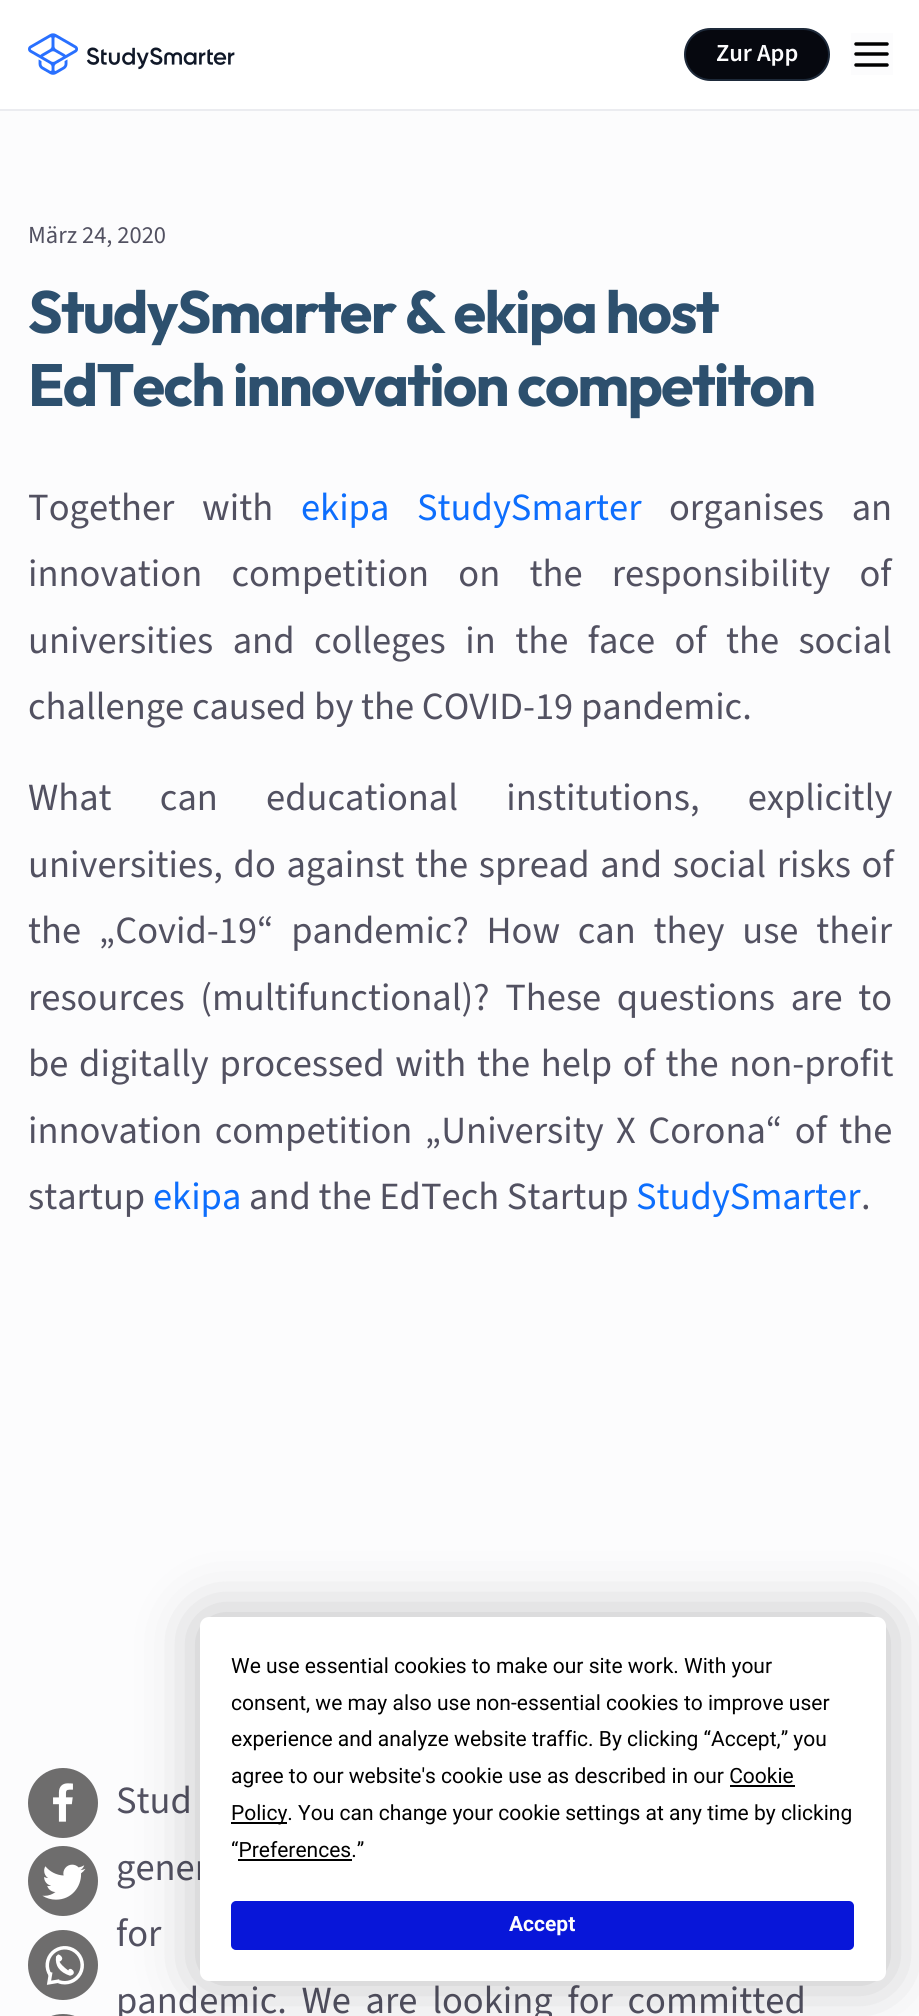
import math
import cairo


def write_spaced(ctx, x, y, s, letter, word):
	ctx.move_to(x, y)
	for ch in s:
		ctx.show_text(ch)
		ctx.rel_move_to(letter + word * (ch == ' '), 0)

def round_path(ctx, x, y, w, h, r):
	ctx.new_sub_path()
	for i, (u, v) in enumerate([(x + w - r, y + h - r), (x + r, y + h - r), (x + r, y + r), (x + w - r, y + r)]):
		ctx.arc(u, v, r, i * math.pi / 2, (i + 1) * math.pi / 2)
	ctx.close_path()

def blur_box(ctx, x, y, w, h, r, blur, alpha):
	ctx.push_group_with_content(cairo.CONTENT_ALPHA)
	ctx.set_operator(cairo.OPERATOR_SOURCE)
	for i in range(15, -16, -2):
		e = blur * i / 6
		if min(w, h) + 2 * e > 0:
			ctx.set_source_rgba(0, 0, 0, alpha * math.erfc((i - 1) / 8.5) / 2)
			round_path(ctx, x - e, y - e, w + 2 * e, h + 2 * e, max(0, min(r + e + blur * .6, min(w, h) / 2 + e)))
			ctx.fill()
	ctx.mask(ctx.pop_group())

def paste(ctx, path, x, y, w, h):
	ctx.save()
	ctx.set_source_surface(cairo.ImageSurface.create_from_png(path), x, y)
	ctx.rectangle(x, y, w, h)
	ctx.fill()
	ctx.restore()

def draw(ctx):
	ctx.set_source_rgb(0.988, 0.988, 0.992)
	ctx.paint()
	ctx.set_source_rgb(1, 1, 1)
	ctx.rectangle(0, 0, 919, 109)
	ctx.fill()
	ctx.set_source_rgb(0.918, 0.925, 0.941)
	ctx.rectangle(0, 109, 919, 2)
	ctx.fill()
	paste(ctx, 'media/1.png', 28, 33, 207, 42)
	ctx.set_source_rgb(0.024, 0.035, 0.059)
	round_path(ctx, 685, 29, 144, 51, 25.5)
	ctx.fill_preserve()
	ctx.set_source_rgb(0.114, 0.161, 0.224)
	ctx.stroke()
	ctx.select_font_face('Source Sans 3 SemiBold')
	ctx.set_font_size(24.5)
	ctx.set_source_rgb(0.988, 0.988, 0.992)
	ctx.move_to(716, 61)
	ctx.show_text('Zur App')
	ctx.rectangle(851, 33, 42, 42)
	ctx.fill()
	ctx.new_path()
	ctx.move_to(856, 54)
	ctx.line_to(887, 54)
	ctx.move_to(856, 44)
	ctx.line_to(887, 44)
	ctx.move_to(856, 65)
	ctx.line_to(887, 65)
	ctx.set_source_rgb(0, 0, 0)
	ctx.set_line_width(3.5)
	ctx.set_line_cap(cairo.LINE_CAP_ROUND)
	ctx.set_line_join(cairo.LINE_JOIN_ROUND)
	ctx.stroke()
	ctx.select_font_face('Source Sans 3')
	ctx.set_source_rgb(0.322, 0.318, 0.38)
	ctx.move_to(28, 243)
	ctx.show_text('März 24, 2020')
	ctx.select_font_face('Outfit', cairo.FONT_SLANT_NORMAL, cairo.FONT_WEIGHT_BOLD)
	ctx.set_font_size(59.5)
	ctx.set_source_rgb(0.176, 0.314, 0.431)
	write_spaced(ctx, 28, 333, 'StudySmarter & ekipa host', -1.8, 0)
	write_spaced(ctx, 28, 406, 'EdTech innovation competiton', -1.8, 0)
	ctx.select_font_face('Source Sans 3')
	ctx.set_font_size(38.5)
	ctx.set_source_rgb(0.322, 0.318, 0.38)
	write_spaced(ctx, 28, 520, 'Together with', 0, 20)
	ctx.set_source_rgb(0.051, 0.431, 0.992)
	ctx.move_to(301, 520)
	ctx.show_text('ekipa')
	ctx.move_to(417, 520)
	ctx.show_text('StudySmarter')
	ctx.set_source_rgb(0.322, 0.318, 0.38)
	write_spaced(ctx, 669, 520, 'organises an', 0, 20)
	write_spaced(ctx, 28, 586, 'innovation competition on the responsibility of', 0, 21.5)
	write_spaced(ctx, 28, 653, 'universities and colleges in the face of the social', 0, 11.75)
	ctx.move_to(28, 719)
	ctx.show_text('challenge caused by the COVID-19 pandemic.')
	write_spaced(ctx, 28, 810, 'What can educational institutions, explicitly', 0, 40.5)
	write_spaced(ctx, 28, 877, 'universities, do against the spread and social risks of', 0, 3)
	write_spaced(ctx, 28, 943, 'the „Covid-19“ pandemic? How can they use their', 0, 10)
	write_spaced(ctx, 28, 1010, 'resources (multifunctional)? These questions are to', 0, 8)
	write_spaced(ctx, 28, 1076, 'be digitally processed with the help of the non-profit', 0, 3)
	write_spaced(ctx, 28, 1143, 'innovation competition „University X Corona“ of the', 0, 4.75)
	ctx.move_to(28, 1209)
	ctx.show_text('startup')
	ctx.set_source_rgb(0.051, 0.431, 0.992)
	ctx.move_to(153, 1209)
	ctx.show_text('ekipa')
	ctx.set_source_rgb(0.322, 0.318, 0.38)
	ctx.move_to(249, 1209)
	ctx.show_text('and the EdTech Startup')
	ctx.set_source_rgb(0.051, 0.431, 0.992)
	ctx.move_to(636, 1209)
	ctx.show_text('StudySmarter')
	ctx.set_source_rgb(0.322, 0.318, 0.38)
	ctx.move_to(861, 1209)
	ctx.show_text('.')
	ctx.set_source_rgb(0.431, 0.427, 0.427)
	ctx.new_path()
	ctx.arc(63, 1803, 35, 0, 2 * math.pi)
	ctx.fill()
	paste(ctx, 'media/2.png', 53, 1783, 20, 39)
	ctx.arc(63, 1881, 35, 0, 2 * math.pi)
	ctx.fill()
	paste(ctx, 'media/3.png', 42, 1864, 44, 36)
	ctx.arc(63, 1965, 35, 0, 2 * math.pi)
	ctx.fill()
	paste(ctx, 'media/4.png', 45, 1946, 39, 39)
	round_path(ctx, 28, 2014, 70, 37, 35)
	ctx.fill()
	ctx.set_source_rgb(0.322, 0.318, 0.38)
	write_spaced(ctx, 116, 1813, 'Stud', 0, 1)
	write_spaced(ctx, 116, 1880, 'gener', 0, 5)
	write_spaced(ctx, 116, 1946, 'for', 0, 31)
	write_spaced(ctx, 116, 2013, 'pandemic. We are looking for committed', 0, 7)
	ctx.set_source_rgb(0, 0, 0)
	blur_box(ctx, 200, 1617, 686, 364, 9, 30.5, 0.25)
	ctx.set_source_rgb(1, 1, 1)
	round_path(ctx, 200, 1617, 686, 364, 9)
	ctx.fill()
	ctx.select_font_face('Roboto')
	ctx.set_font_size(21)
	ctx.set_source_rgb(0, 0, 0)
	for x, y, s in [
		(231, 1673, 'We use essential cookies to make our site work. With your'),
		(231, 1710, 'consent, we may also use non-essential cookies to improve user'),
		(231, 1746, 'experience and analyze website traffic. By clicking “Accept,” you'),
		(231, 1783, 'agree to our website\'s cookie use as described in our Cookie'),
	]:
		ctx.move_to(x, y)
		ctx.show_text(s)
	ctx.rectangle(231, 1822, 56, 2)
	ctx.fill()
	ctx.move_to(231, 1820)
	ctx.show_text('Policy. You can change your cookie settings at any time by clicking')
	ctx.rectangle(730, 1785, 65, 2)
	ctx.fill()
	ctx.move_to(231, 1857)
	ctx.show_text('“Preferences.”')
	ctx.rectangle(238, 1859, 114, 2)
	ctx.fill()
	ctx.set_source_rgb(0.035, 0.086, 0.851)
	round_path(ctx, 232, 1902, 621, 47, 4)
	ctx.fill_preserve()
	ctx.set_line_width(2)
	ctx.set_line_cap(cairo.LINE_CAP_BUTT)
	ctx.set_line_join(cairo.LINE_JOIN_MITER)
	ctx.stroke()
	ctx.select_font_face('Roboto', cairo.FONT_SLANT_NORMAL, cairo.FONT_WEIGHT_BOLD)
	ctx.set_source_rgb(0.988, 0.988, 0.992)
	ctx.move_to(509, 1931)
	ctx.show_text('Accept')


surface = cairo.ImageSurface(cairo.FORMAT_RGB24, 919, 2016)
ctx = cairo.Context(surface)
options = cairo.FontOptions()
options.set_hint_metrics(cairo.HINT_METRICS_OFF)
options.set_hint_style(cairo.HINT_STYLE_NONE)
ctx.set_font_options(options)
ctx.set_miter_limit(4)
draw(ctx)
surface.write_to_png('image.png')
